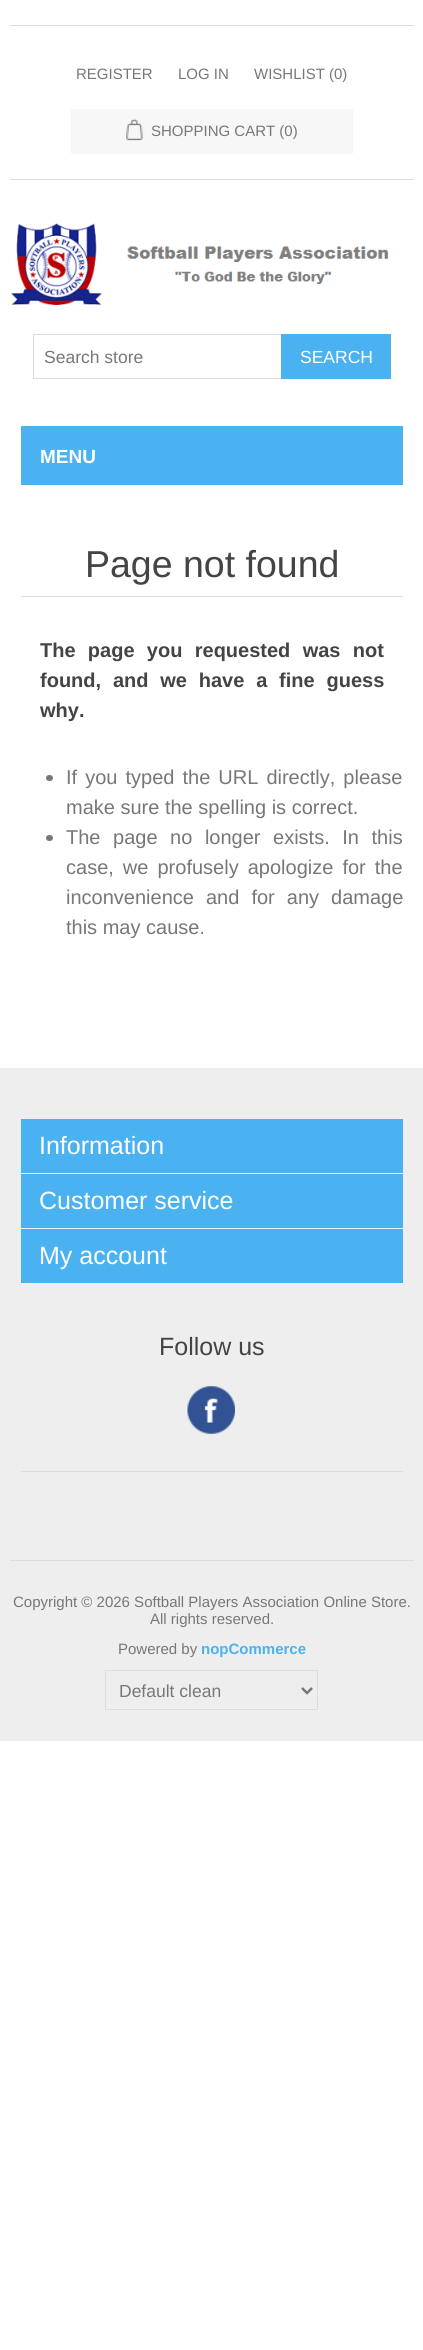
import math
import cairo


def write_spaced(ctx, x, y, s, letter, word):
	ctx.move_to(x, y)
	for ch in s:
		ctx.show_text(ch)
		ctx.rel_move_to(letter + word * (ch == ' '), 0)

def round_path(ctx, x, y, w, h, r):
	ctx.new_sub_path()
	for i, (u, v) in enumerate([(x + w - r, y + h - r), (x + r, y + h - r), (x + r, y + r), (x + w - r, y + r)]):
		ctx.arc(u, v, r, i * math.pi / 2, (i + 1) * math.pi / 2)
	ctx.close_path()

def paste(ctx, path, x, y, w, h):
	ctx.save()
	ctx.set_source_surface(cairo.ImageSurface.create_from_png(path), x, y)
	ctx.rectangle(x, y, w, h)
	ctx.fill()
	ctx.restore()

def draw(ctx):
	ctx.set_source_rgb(1, 1, 1)
	ctx.paint()
	ctx.set_source_rgb(0.867, 0.867, 0.867)
	ctx.rectangle(10, 179, 404, 1)
	ctx.fill()
	ctx.rectangle(10, 25, 404, 1)
	ctx.fill()
	ctx.select_font_face('Liberation Sans')
	ctx.set_font_size(15)
	ctx.set_source_rgb(0.467, 0.467, 0.467)
	for x, y, s in [
		(76, 79, 'REGISTER'),
		(178, 79, 'LOG IN'),
		(254, 79, 'WISHLIST (0)'),
	]:
		ctx.move_to(x, y)
		ctx.show_text(s)
	ctx.set_source_rgb(0.965, 0.965, 0.965)
	ctx.rectangle(71, 109, 282, 45)
	ctx.fill()
	paste(ctx, 'media/1.png', 126, 118, 17, 23)
	ctx.set_source_rgb(0.467, 0.467, 0.467)
	ctx.move_to(151, 136)
	ctx.show_text('SHOPPING CART (0)')
	paste(ctx, 'media/2.png', 11, 223, 378, 82)
	ctx.rectangle(33.5, 334.5, 249, 44)
	ctx.set_source_rgb(0.867, 0.867, 0.867)
	ctx.set_line_width(1)
	ctx.stroke()
	ctx.set_font_size(17.5)
	ctx.set_source_rgb(0.467, 0.467, 0.467)
	ctx.move_to(44, 363)
	ctx.show_text('Search store')
	ctx.set_source_rgb(0.29, 0.698, 0.945)
	ctx.rectangle(281, 334, 110, 45)
	ctx.fill()
	ctx.set_source_rgb(1, 1, 1)
	ctx.move_to(300, 363)
	ctx.show_text('SEARCH')
	ctx.set_source_rgb(0.29, 0.698, 0.945)
	ctx.rectangle(21, 426, 382, 59)
	ctx.fill()
	ctx.select_font_face('Liberation Sans', cairo.FONT_SLANT_NORMAL, cairo.FONT_WEIGHT_BOLD)
	ctx.set_font_size(19)
	ctx.set_source_rgb(1, 1, 1)
	ctx.move_to(40, 463)
	ctx.show_text('MENU')
	ctx.set_source_rgb(0.867, 0.867, 0.867)
	ctx.rectangle(21, 596, 382, 1)
	ctx.fill()
	ctx.select_font_face('Liberation Sans')
	ctx.set_font_size(37.5)
	ctx.set_source_rgb(0.267, 0.267, 0.267)
	ctx.move_to(85, 577)
	ctx.show_text('Page not found')
	ctx.select_font_face('Liberation Sans', cairo.FONT_SLANT_NORMAL, cairo.FONT_WEIGHT_BOLD)
	ctx.set_font_size(20)
	write_spaced(ctx, 40, 657, 'The page you requested was not', 0, 6.75)
	write_spaced(ctx, 40, 687, 'found, and we have a fine guess', 0, 6.25)
	ctx.move_to(40, 717)
	ctx.show_text('why.')
	ctx.set_source_rgb(0.467, 0.467, 0.467)
	round_path(ctx, 46, 775, 7, 6, 3)
	ctx.fill()
	ctx.select_font_face('Liberation Sans')
	write_spaced(ctx, 66, 784, 'If you typed the URL directly, please', 0, 2.5)
	ctx.move_to(66, 814)
	ctx.show_text('make sure the spelling is correct.')
	round_path(ctx, 46, 835, 7, 6, 3)
	ctx.fill()
	write_spaced(ctx, 66, 844, 'The page no longer exists. In this', 0, 7)
	write_spaced(ctx, 66, 874, 'case, we profusely apologize for the', 0, 3.5)
	write_spaced(ctx, 66, 904, 'inconvenience and for any damage', 0, 6.5)
	ctx.move_to(66, 934)
	ctx.show_text('this may cause.')
	ctx.set_source_rgb(0.933, 0.933, 0.933)
	ctx.rectangle(0, 1068, 423, 673)
	ctx.fill()
	ctx.set_source_rgb(0.867, 0.867, 0.867)
	ctx.rectangle(10, 1560, 404, 1)
	ctx.fill()
	ctx.set_source_rgb(0.29, 0.698, 0.945)
	ctx.rectangle(21, 1119, 382, 54)
	ctx.fill()
	ctx.set_font_size(25)
	ctx.set_source_rgb(1, 1, 1)
	ctx.move_to(39, 1154)
	ctx.show_text('Information')
	ctx.set_source_rgb(0.29, 0.698, 0.945)
	ctx.rectangle(21, 1174, 382, 54)
	ctx.fill()
	ctx.set_source_rgb(1, 1, 1)
	ctx.move_to(39, 1209)
	ctx.show_text('Customer service')
	ctx.set_source_rgb(0.29, 0.698, 0.945)
	ctx.rectangle(21, 1229, 382, 54)
	ctx.fill()
	ctx.set_source_rgb(1, 1, 1)
	ctx.move_to(39, 1264)
	ctx.show_text('My account')
	ctx.set_source_rgb(0.267, 0.267, 0.267)
	ctx.move_to(159, 1355)
	ctx.show_text('Follow us')
	ctx.set_source_rgb(0.867, 0.867, 0.867)
	ctx.rectangle(21, 1471, 382, 1)
	ctx.fill()
	paste(ctx, 'media/3.png', 187, 1386, 48, 48)
	ctx.set_font_size(15)
	ctx.set_source_rgb(0.467, 0.467, 0.467)
	for x, y, s in [
		(13, 1607, 'Copyright © 2026 Softball Players Association Online Store.'),
		(150, 1624, 'All rights reserved.'),
		(118, 1654, 'Powered by'),
	]:
		ctx.move_to(x, y)
		ctx.show_text(s)
	ctx.select_font_face('Liberation Sans', cairo.FONT_SLANT_NORMAL, cairo.FONT_WEIGHT_BOLD)
	ctx.set_source_rgb(0.29, 0.698, 0.945)
	ctx.move_to(201, 1654)
	ctx.show_text('nopCommerce')
	ctx.rectangle(105.5, 1670.5, 212, 39)
	ctx.set_source_rgb(0.867, 0.867, 0.867)
	ctx.stroke()
	ctx.new_path()
	ctx.move_to(302, 1688)
	ctx.line_to(307, 1693)
	ctx.line_to(312, 1688)
	ctx.set_source_rgb(0.467, 0.467, 0.467)
	ctx.set_line_width(2.5)
	ctx.stroke()
	ctx.select_font_face('Liberation Sans')
	ctx.set_font_size(17.5)
	ctx.move_to(119, 1697)
	ctx.show_text('Default clean')


surface = cairo.ImageSurface(cairo.FORMAT_RGB24, 423, 2350)
ctx = cairo.Context(surface)
options = cairo.FontOptions()
options.set_hint_metrics(cairo.HINT_METRICS_OFF)
options.set_hint_style(cairo.HINT_STYLE_NONE)
ctx.set_font_options(options)
ctx.set_miter_limit(4)
draw(ctx)
surface.write_to_png('image.png')
